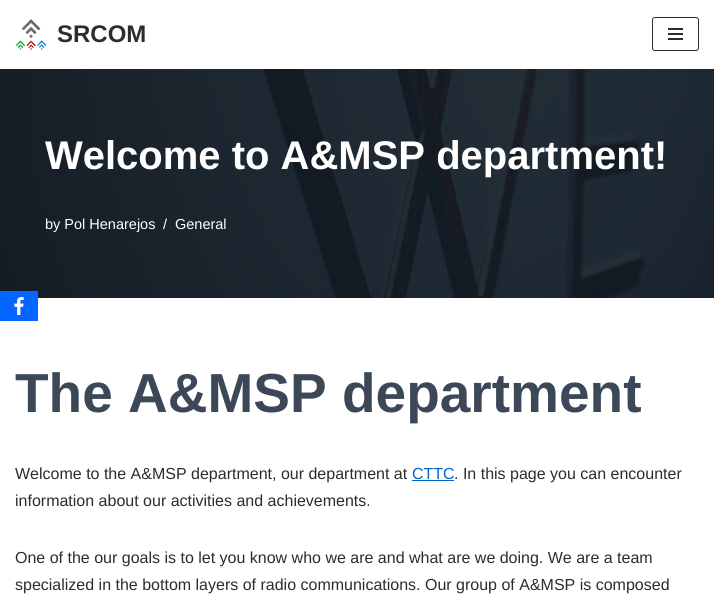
import math
import cairo


def round_path(ctx, x, y, w, h, r):
	ctx.new_sub_path()
	for i, (u, v) in enumerate([(x + w - r, y + h - r), (x + r, y + h - r), (x + r, y + r), (x + w - r, y + r)]):
		ctx.arc(u, v, r, i * math.pi / 2, (i + 1) * math.pi / 2)
	ctx.close_path()

def paste(ctx, path, x, y, w, h):
	ctx.save()
	ctx.set_source_surface(cairo.ImageSurface.create_from_png(path), x, y)
	ctx.rectangle(x, y, w, h)
	ctx.fill()
	ctx.restore()

def draw(ctx):
	ctx.set_source_rgb(1, 1, 1)
	ctx.paint()
	paste(ctx, 'media/1.png', 15, 19, 32, 31)
	ctx.select_font_face('Liberation Sans', cairo.FONT_SLANT_NORMAL, cairo.FONT_WEIGHT_BOLD)
	ctx.set_font_size(24)
	ctx.set_source_rgb(0.173, 0.173, 0.173)
	ctx.move_to(57, 42)
	ctx.show_text('SRCOM')
	round_path(ctx, 652.5, 17.5, 46, 33, 2.5)
	ctx.set_line_width(1)
	ctx.stroke()
	ctx.rectangle(668, 28, 15, 2)
	ctx.rectangle(668, 33, 15, 2)
	ctx.rectangle(668, 38, 15, 2)
	ctx.fill()
	paste(ctx, 'media/2.png', 0, 69, 714, 229)
	ctx.set_font_size(40)
	ctx.set_source_rgb(1, 1, 1)
	ctx.move_to(45, 169)
	ctx.show_text('Welcome to A&MSP department!')
	ctx.select_font_face('Liberation Sans')
	ctx.set_font_size(14.5)
	for x, y, s in [
		(45, 229, 'by Pol Henarejos'),
		(163, 229, '/'),
		(175, 229, 'General'),
	]:
		ctx.move_to(x, y)
		ctx.show_text(s)
	ctx.select_font_face('Liberation Sans', cairo.FONT_SLANT_NORMAL, cairo.FONT_WEIGHT_BOLD)
	ctx.set_font_size(55)
	ctx.set_source_rgb(0.235, 0.282, 0.345)
	ctx.move_to(15, 412)
	ctx.show_text('The A&MSP department')
	ctx.select_font_face('Liberation Sans')
	ctx.set_font_size(16)
	ctx.set_source_rgb(0.173, 0.173, 0.173)
	ctx.move_to(15, 479)
	ctx.show_text('Welcome to the A&MSP department, our department at')
	ctx.set_source_rgb(0, 0.396, 0.796)
	ctx.move_to(412, 479)
	ctx.show_text('CTTC')
	ctx.rectangle(412, 480, 42, 1)
	ctx.fill()
	ctx.set_source_rgb(0.173, 0.173, 0.173)
	for x, y, s in [
		(454, 479, '. In this page you can encounter'),
		(15, 506, 'information about our activities and achievements.'),
		(15, 563, 'One of the our goals is to let you know who we are and what are we doing. We are a team'),
		(15, 590, 'specialized in the bottom layers of radio communications. Our group of A&MSP is composed'),
	]:
		ctx.move_to(x, y)
		ctx.show_text(s)
	ctx.set_source_rgb(0.031, 0.4, 1)
	ctx.rectangle(0, 291, 38, 30)
	ctx.fill()
	paste(ctx, 'media/3.png', 14, 297, 10, 18)


surface = cairo.ImageSurface(cairo.FORMAT_RGB24, 714, 611)
ctx = cairo.Context(surface)
options = cairo.FontOptions()
options.set_hint_metrics(cairo.HINT_METRICS_OFF)
options.set_hint_style(cairo.HINT_STYLE_NONE)
ctx.set_font_options(options)
ctx.set_miter_limit(4)
draw(ctx)
surface.write_to_png('image.png')
